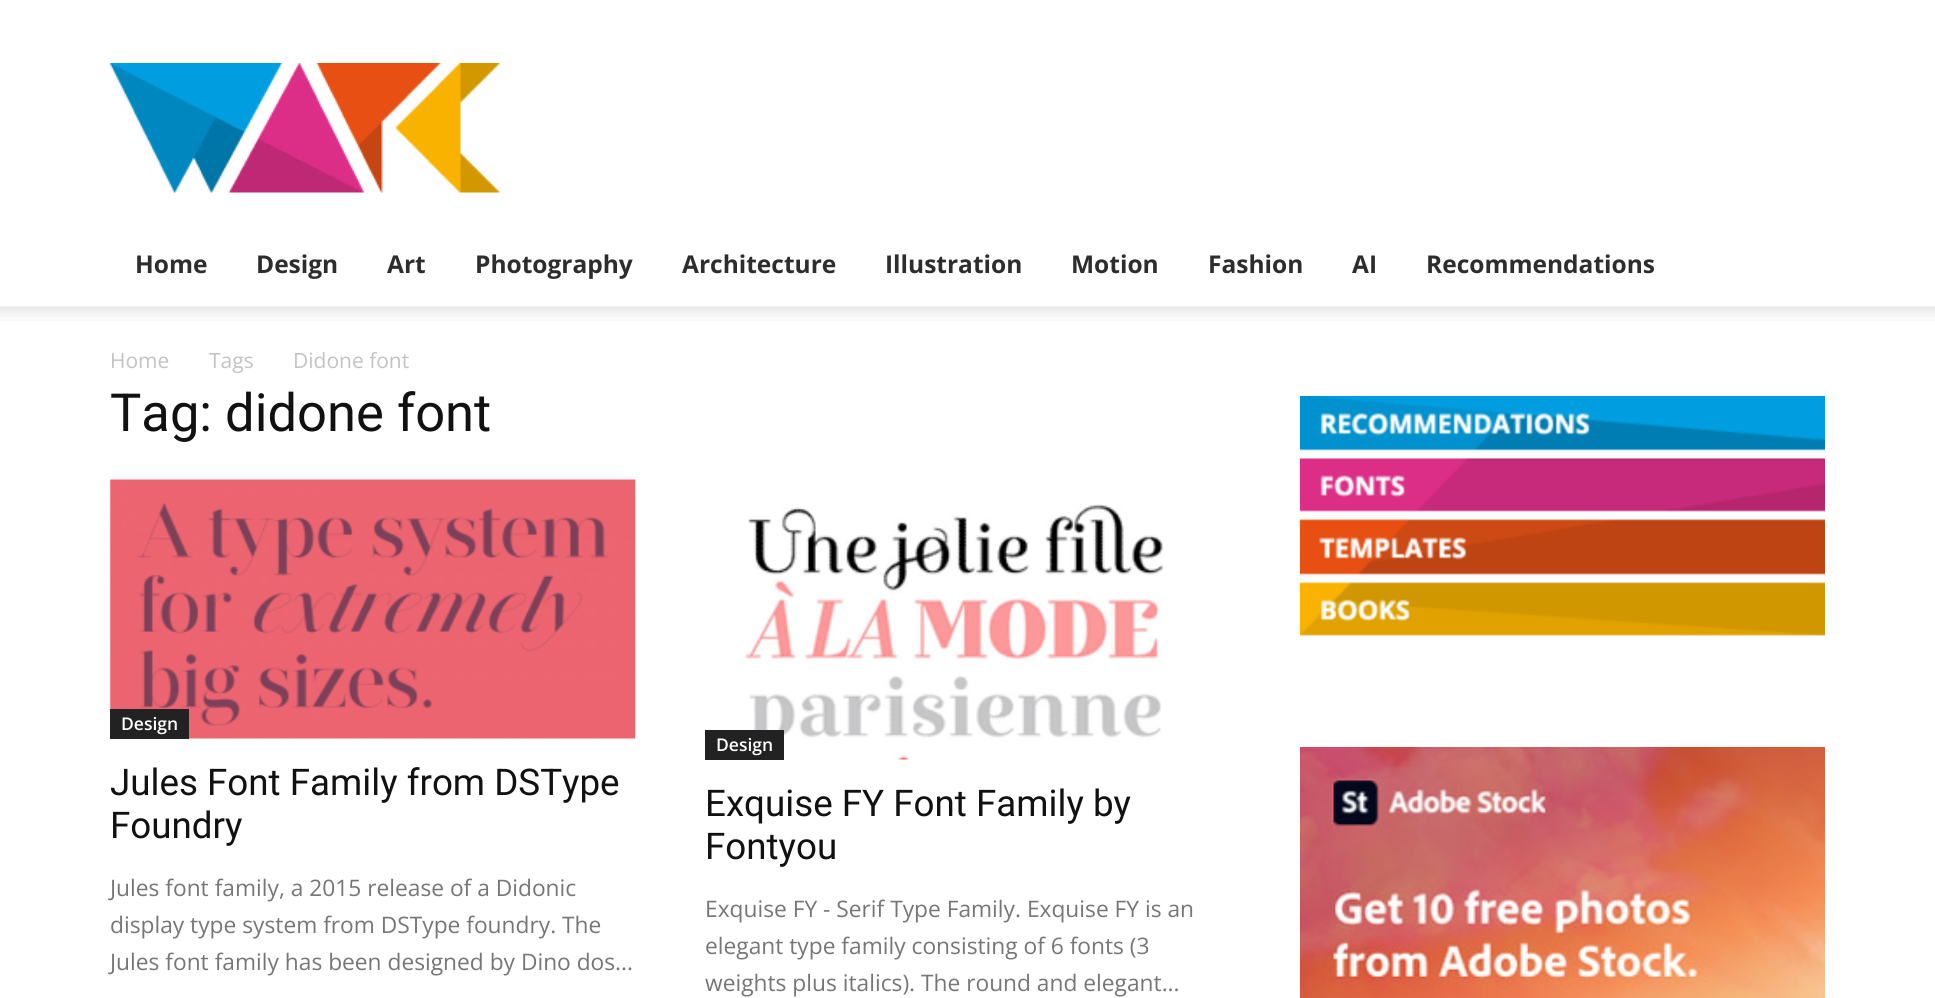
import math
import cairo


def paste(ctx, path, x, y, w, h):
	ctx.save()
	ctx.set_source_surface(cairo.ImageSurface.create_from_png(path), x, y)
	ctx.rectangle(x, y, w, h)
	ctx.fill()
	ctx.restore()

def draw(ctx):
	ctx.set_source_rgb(1, 1, 1)
	ctx.paint()
	paste(ctx, 'media/1.png', 110, 63, 391, 130)
	ctx.select_font_face('Open Sans', cairo.FONT_SLANT_NORMAL, cairo.FONT_WEIGHT_BOLD)
	ctx.set_font_size(24.5)
	ctx.set_source_rgb(0.176, 0.176, 0.176)
	for x, y, s in [
		(135, 273, 'Home'),
		(256, 273, 'Design'),
		(387, 273, 'Art'),
		(475, 273, 'Photography'),
		(682, 273, 'Architecture'),
		(885, 273, 'Illustration'),
		(1071, 273, 'Motion'),
		(1208, 273, 'Fashion'),
		(1352, 273, 'AI'),
		(1426, 273, 'Recommendations'),
	]:
		ctx.move_to(x, y)
		ctx.show_text(s)
	paste(ctx, 'media/2.png', 0, 306, 1935, 15)
	ctx.select_font_face('Open Sans')
	ctx.set_font_size(21)
	ctx.set_source_rgb(0.765, 0.765, 0.765)
	for x, y, s in [
		(110, 368, 'Home'),
		(209, 368, 'Tags'),
		(293, 368, 'Didone font'),
	]:
		ctx.move_to(x, y)
		ctx.show_text(s)
	ctx.select_font_face('Roboto')
	ctx.set_font_size(52.5)
	ctx.set_source_rgb(0.067, 0.067, 0.067)
	ctx.move_to(110, 431)
	ctx.show_text('Tag: didone font')
	paste(ctx, 'media/3.png', 110, 479, 526, 260)
	ctx.set_source_rgb(0.133, 0.133, 0.133)
	ctx.rectangle(110, 709, 79, 30)
	ctx.fill()
	ctx.select_font_face('Open Sans SemiBold')
	ctx.set_font_size(17.5)
	ctx.set_source_rgb(1, 1, 1)
	ctx.move_to(121, 730)
	ctx.show_text('Design')
	ctx.select_font_face('Roboto')
	ctx.set_font_size(36.75)
	ctx.set_source_rgb(0.067, 0.067, 0.067)
	ctx.move_to(110, 795)
	ctx.show_text('Jules Font Family from DSType')
	ctx.move_to(110, 838)
	ctx.show_text('Foundry')
	ctx.select_font_face('Open Sans')
	ctx.set_font_size(22.75)
	ctx.set_source_rgb(0.463, 0.463, 0.463)
	for x, y, s in [
		(110, 896, 'Jules font family, a 2015 release of a Didonic'),
		(110, 933, 'display type system from DSType foundry. The'),
		(110, 970, 'Jules font family has been designed by Dino dos...'),
	]:
		ctx.move_to(x, y)
		ctx.show_text(s)
	paste(ctx, 'media/4.png', 744, 504, 420, 256)
	ctx.set_source_rgb(0.133, 0.133, 0.133)
	ctx.rectangle(705, 730, 79, 30)
	ctx.fill()
	ctx.select_font_face('Open Sans SemiBold')
	ctx.set_font_size(17.5)
	ctx.set_source_rgb(1, 1, 1)
	ctx.move_to(716, 751)
	ctx.show_text('Design')
	ctx.select_font_face('Roboto')
	ctx.set_font_size(36.75)
	ctx.set_source_rgb(0.067, 0.067, 0.067)
	ctx.move_to(705, 816)
	ctx.show_text('Exquise FY Font Family by')
	ctx.move_to(705, 859)
	ctx.show_text('Fontyou')
	ctx.select_font_face('Open Sans')
	ctx.set_font_size(22.75)
	ctx.set_source_rgb(0.463, 0.463, 0.463)
	for x, y, s in [
		(705, 917, 'Exquise FY - Serif Type Family. Exquise FY is an'),
		(705, 954, 'elegant type family consisting of 6 fonts (3'),
		(705, 991, 'weights plus italics). The round and elegant...'),
	]:
		ctx.move_to(x, y)
		ctx.show_text(s)
	paste(ctx, 'media/5.png', 1300, 396, 525, 55)
	paste(ctx, 'media/6.png', 1300, 458, 525, 54)
	paste(ctx, 'media/7.png', 1300, 519, 525, 56)
	paste(ctx, 'media/8.png', 1300, 582, 525, 54)
	paste(ctx, 'media/9.png', 1300, 747, 525, 251)


surface = cairo.ImageSurface(cairo.FORMAT_RGB24, 1935, 998)
ctx = cairo.Context(surface)
options = cairo.FontOptions()
options.set_hint_metrics(cairo.HINT_METRICS_OFF)
options.set_hint_style(cairo.HINT_STYLE_NONE)
ctx.set_font_options(options)
ctx.set_miter_limit(4)
draw(ctx)
surface.write_to_png('image.png')
